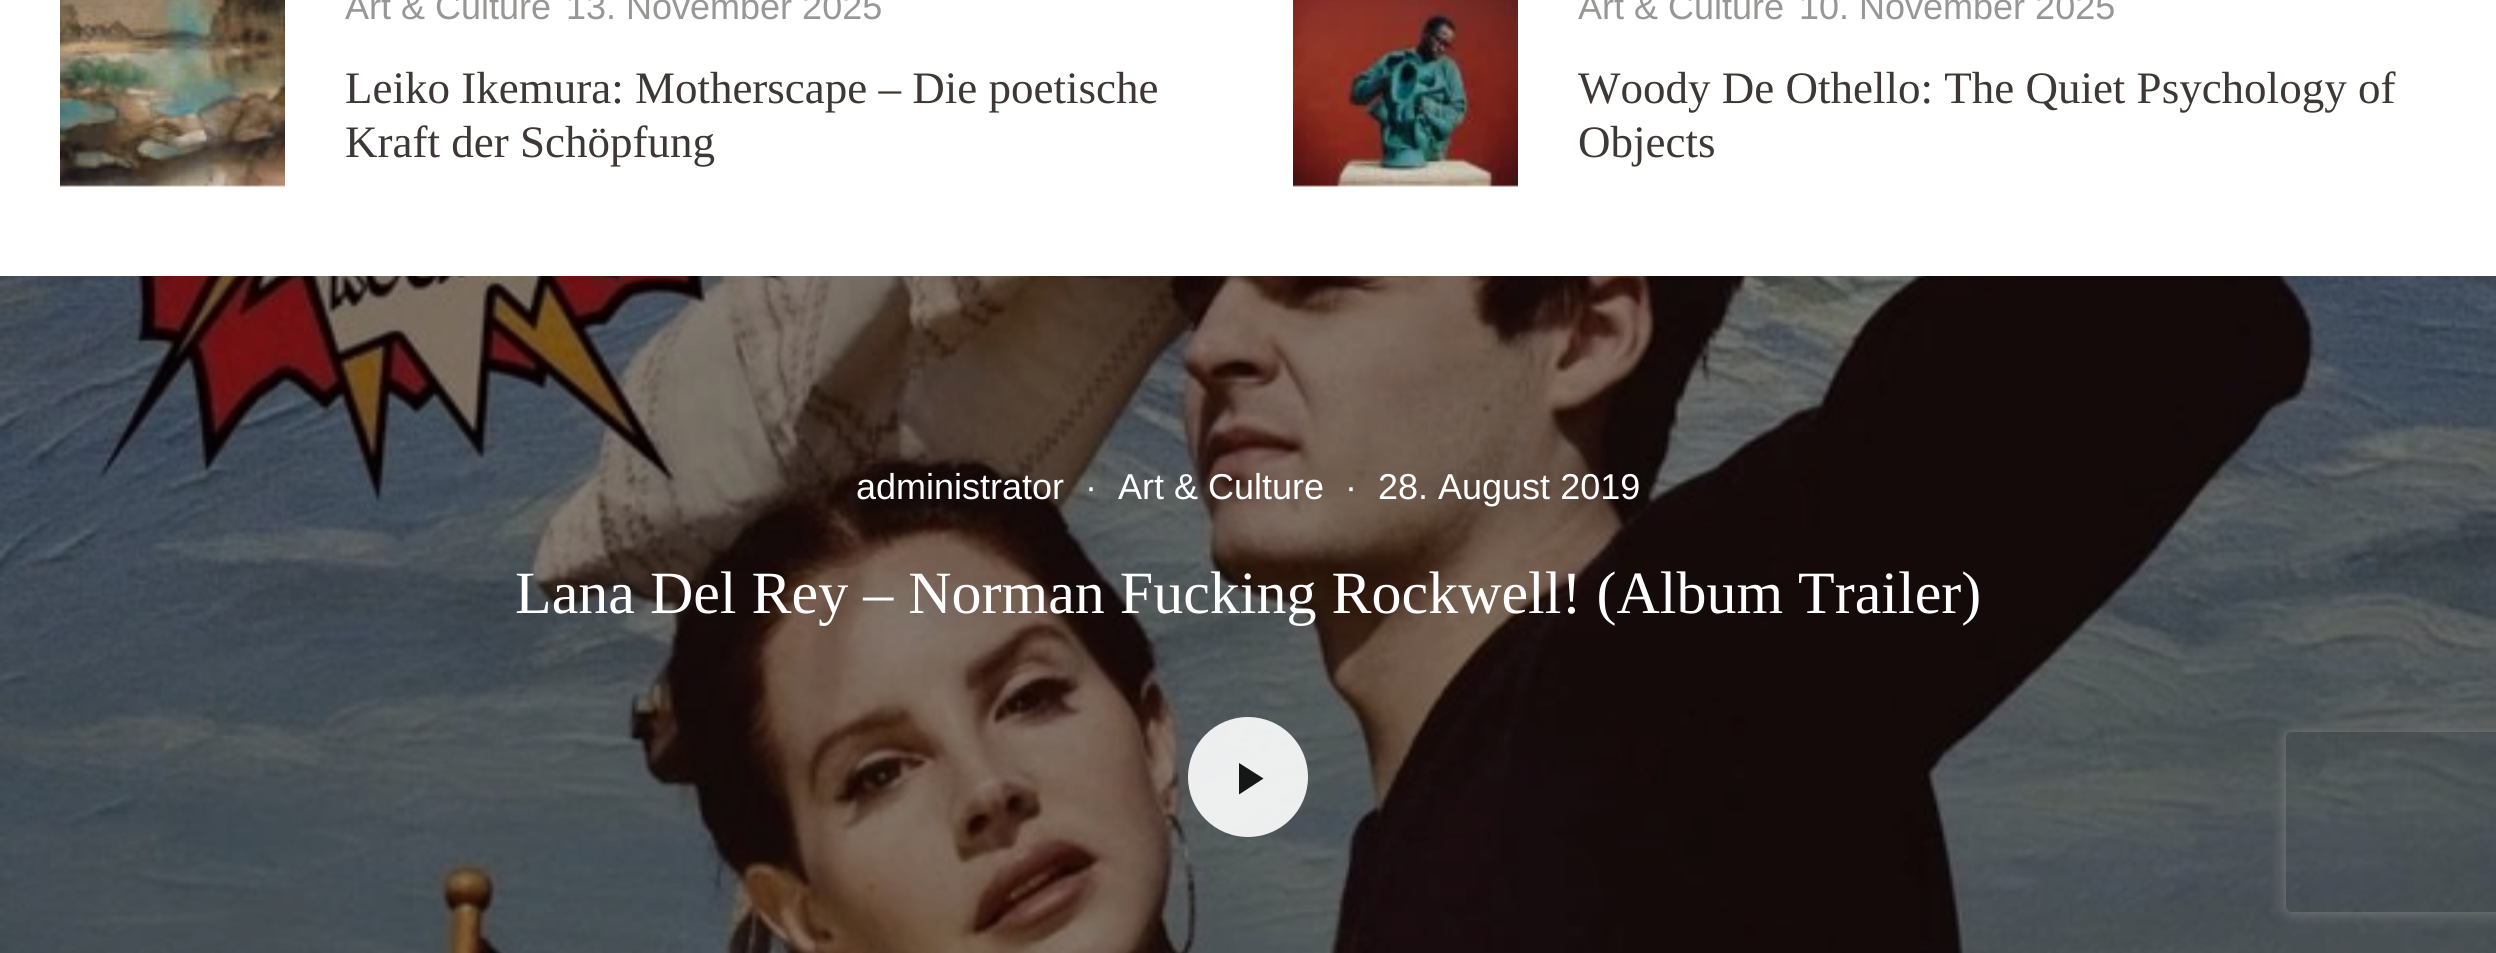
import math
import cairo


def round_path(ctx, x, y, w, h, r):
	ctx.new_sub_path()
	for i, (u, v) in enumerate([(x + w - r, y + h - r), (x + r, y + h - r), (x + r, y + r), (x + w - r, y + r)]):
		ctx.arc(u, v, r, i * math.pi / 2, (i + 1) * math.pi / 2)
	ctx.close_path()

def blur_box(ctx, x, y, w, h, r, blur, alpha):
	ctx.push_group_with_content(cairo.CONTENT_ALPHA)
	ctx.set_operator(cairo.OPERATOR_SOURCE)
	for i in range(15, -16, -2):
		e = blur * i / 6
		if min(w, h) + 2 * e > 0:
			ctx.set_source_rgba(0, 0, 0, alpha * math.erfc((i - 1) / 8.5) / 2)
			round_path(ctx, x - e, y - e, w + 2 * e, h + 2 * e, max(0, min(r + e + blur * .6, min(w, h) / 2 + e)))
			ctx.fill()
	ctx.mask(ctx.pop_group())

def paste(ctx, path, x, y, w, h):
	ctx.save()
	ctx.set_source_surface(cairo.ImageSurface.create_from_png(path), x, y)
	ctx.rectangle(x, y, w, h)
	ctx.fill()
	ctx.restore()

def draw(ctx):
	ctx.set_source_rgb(1, 1, 1)
	ctx.paint()
	paste(ctx, 'media/1.png', 60, 0, 225, 187)
	ctx.select_font_face('Liberation Sans')
	ctx.set_font_size(36)
	ctx.set_source_rgb(0.6, 0.592, 0.588)
	ctx.move_to(345, 19)
	ctx.show_text('Art & Culture')
	ctx.move_to(566, 19)
	ctx.show_text('13. November 2025')
	ctx.select_font_face('Liberation Serif')
	ctx.set_font_size(45)
	ctx.set_source_rgb(0.239, 0.22, 0.208)
	ctx.move_to(345, 103)
	ctx.show_text('Leiko Ikemura: Motherscape – Die poetische')
	ctx.move_to(345, 157)
	ctx.show_text('Kraft der Schöpfung')
	paste(ctx, 'media/2.png', 1293, 0, 225, 187)
	ctx.select_font_face('Liberation Sans')
	ctx.set_font_size(36)
	ctx.set_source_rgb(0.6, 0.592, 0.588)
	ctx.move_to(1578, 19)
	ctx.show_text('Art & Culture')
	ctx.move_to(1799, 19)
	ctx.show_text('10. November 2025')
	ctx.select_font_face('Liberation Serif')
	ctx.set_font_size(45)
	ctx.set_source_rgb(0.239, 0.22, 0.208)
	ctx.move_to(1578, 103)
	ctx.show_text('Woody De Othello: The Quiet Psychology of')
	ctx.move_to(1578, 157)
	ctx.show_text('Objects')
	paste(ctx, 'media/3.png', 0, 276, 2496, 677)
	ctx.select_font_face('Liberation Sans')
	ctx.set_font_size(36)
	ctx.set_source_rgb(1, 1, 1)
	for x, y, s in [
		(856, 499, 'administrator'),
		(1085, 499, '·'),
		(1118, 499, 'Art & Culture'),
		(1345, 499, '·'),
		(1378, 499, '28. August 2019'),
	]:
		ctx.move_to(x, y)
		ctx.show_text(s)
	ctx.select_font_face('Liberation Serif')
	ctx.set_font_size(60)
	ctx.move_to(515, 613)
	ctx.show_text('Lana Del Rey – Norman Fucking Rockwell! (Album Trailer)')
	ctx.set_source_rgba(1, 1, 1, 0.9)
	ctx.new_path()
	ctx.arc(1248, 777, 60, 0, 2 * math.pi)
	ctx.fill()
	ctx.set_source_rgb(0.086, 0.086, 0.086)
	ctx.new_path()
	ctx.move_to(1239, 763)
	ctx.line_to(1263.5, 778.5)
	ctx.line_to(1239, 794.5)
	ctx.close_path()
	ctx.fill()
	ctx.save()
	ctx.set_fill_rule(cairo.FILL_RULE_EVEN_ODD)
	ctx.new_path()
	ctx.move_to(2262, 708)
	ctx.line_to(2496, 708)
	ctx.line_to(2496, 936)
	ctx.line_to(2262, 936)
	ctx.close_path()
	ctx.move_to(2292, 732)
	ctx.line_to(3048, 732)
	ctx.curve_to(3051.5, 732, 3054, 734.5, 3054, 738)
	ctx.line_to(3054, 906)
	ctx.curve_to(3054, 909.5, 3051.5, 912, 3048, 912)
	ctx.line_to(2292, 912)
	ctx.curve_to(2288.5, 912, 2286, 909.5, 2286, 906)
	ctx.line_to(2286, 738)
	ctx.curve_to(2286, 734.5, 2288.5, 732, 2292, 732)
	ctx.close_path()
	ctx.clip()
	ctx.set_source_rgb(0.502, 0.502, 0.502)
	blur_box(ctx, 2286, 732, 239, 180, 6, 7.5, 1)
	ctx.restore()


surface = cairo.ImageSurface(cairo.FORMAT_RGB24, 2496, 953)
ctx = cairo.Context(surface)
options = cairo.FontOptions()
options.set_hint_metrics(cairo.HINT_METRICS_OFF)
options.set_hint_style(cairo.HINT_STYLE_NONE)
ctx.set_font_options(options)
ctx.set_miter_limit(4)
draw(ctx)
surface.write_to_png('image.png')
